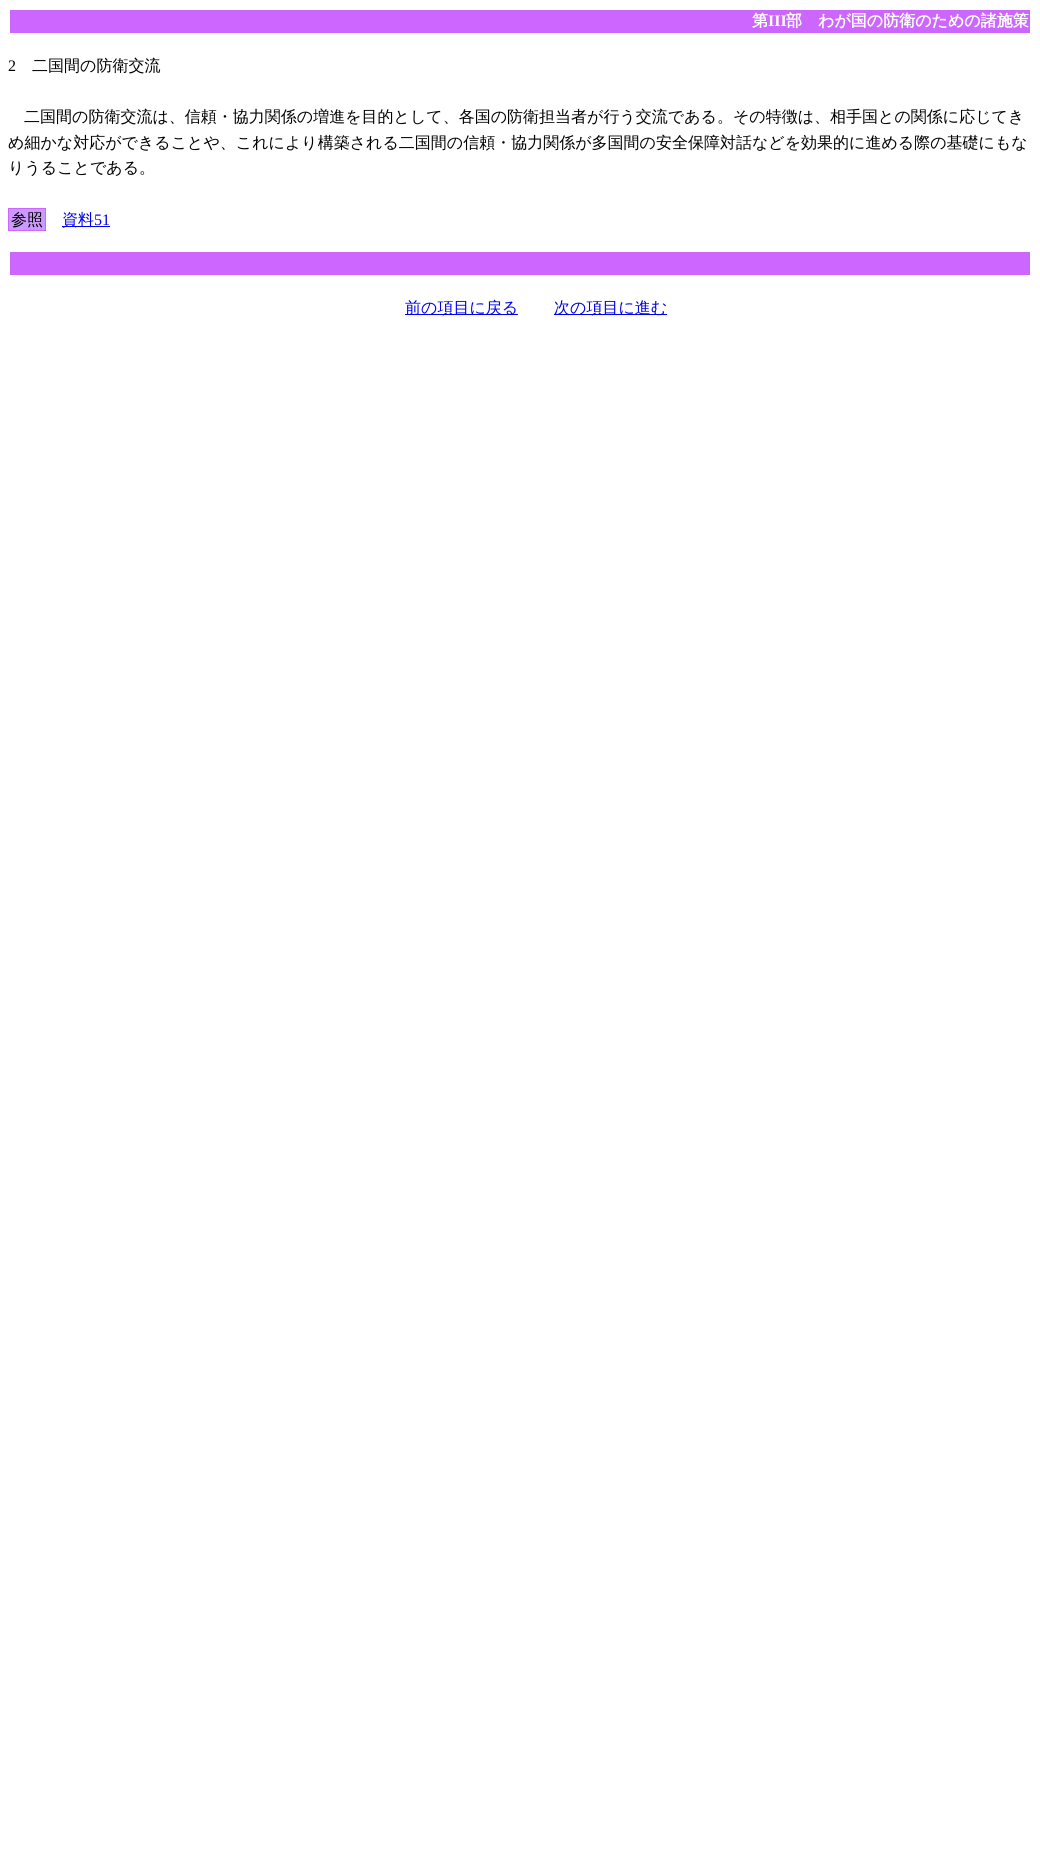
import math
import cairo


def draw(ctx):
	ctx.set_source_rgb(1, 1, 1)
	ctx.paint()
	ctx.set_source_rgb(0.8, 0.4, 1)
	ctx.rectangle(10, 10, 1020, 23)
	ctx.fill()
	ctx.select_font_face('WenQuanYi Zen Hei', cairo.FONT_SLANT_NORMAL, cairo.FONT_WEIGHT_BOLD)
	ctx.set_font_size(16)
	ctx.set_source_rgb(1, 1, 1)
	ctx.move_to(752, 26)
	ctx.show_text('第')
	ctx.select_font_face('Liberation Serif', cairo.FONT_SLANT_NORMAL, cairo.FONT_WEIGHT_BOLD)
	ctx.move_to(768, 26)
	ctx.show_text('III')
	ctx.select_font_face('WenQuanYi Zen Hei', cairo.FONT_SLANT_NORMAL, cairo.FONT_WEIGHT_BOLD)
	ctx.move_to(786, 26)
	ctx.show_text('部　わが国の防衛のための諸施策')
	ctx.select_font_face('Liberation Serif')
	ctx.set_source_rgb(0, 0, 0)
	ctx.move_to(8, 71)
	ctx.show_text('2')
	ctx.select_font_face('WenQuanYi Zen Hei Medium')
	for x, y, s in [
		(32, 71, '二国間の防衛交流'),
		(24, 122, '二国間の防衛交流は、信頼・協力関係の増進を目的として、各国の防衛担当者が行う交流である。その特徴は、相手国との関係に応じてき'),
		(8, 148, 'め細かな対応ができることや、これにより構築される二国間の信頼・協力関係が多国間の安全保障対話などを効果的に進める際の基礎にもな'),
		(8, 173, 'りうることである。'),
	]:
		ctx.move_to(x, y)
		ctx.show_text(s)
	ctx.set_source_rgb(0.8, 0.6, 1)
	ctx.rectangle(8.5, 208.5, 37, 22)
	ctx.fill_preserve()
	ctx.set_source_rgb(0.8, 0.4, 1)
	ctx.set_line_width(1)
	ctx.stroke()
	ctx.set_source_rgb(0, 0, 0)
	ctx.move_to(11, 225)
	ctx.show_text('参照')
	ctx.set_source_rgb(0, 0, 0.933)
	ctx.rectangle(62, 226, 48, 1)
	ctx.fill()
	ctx.move_to(62, 225)
	ctx.show_text('資料')
	ctx.select_font_face('Liberation Serif')
	ctx.move_to(94, 225)
	ctx.show_text('51')
	ctx.set_source_rgb(0.8, 0.4, 1)
	ctx.rectangle(10, 252, 1020, 23)
	ctx.fill()
	ctx.set_source_rgb(0, 0, 0.933)
	ctx.rectangle(405, 314, 113, 1)
	ctx.fill()
	ctx.select_font_face('WenQuanYi Zen Hei Medium')
	ctx.move_to(405, 313)
	ctx.show_text('前の項目に戻る')
	ctx.rectangle(554, 314, 113, 1)
	ctx.fill()
	ctx.move_to(554, 313)
	ctx.show_text('次の項目に進む')


surface = cairo.ImageSurface(cairo.FORMAT_RGB24, 1040, 1849)
ctx = cairo.Context(surface)
options = cairo.FontOptions()
options.set_hint_metrics(cairo.HINT_METRICS_OFF)
options.set_hint_style(cairo.HINT_STYLE_NONE)
ctx.set_font_options(options)
ctx.set_miter_limit(4)
draw(ctx)
surface.write_to_png('image.png')
